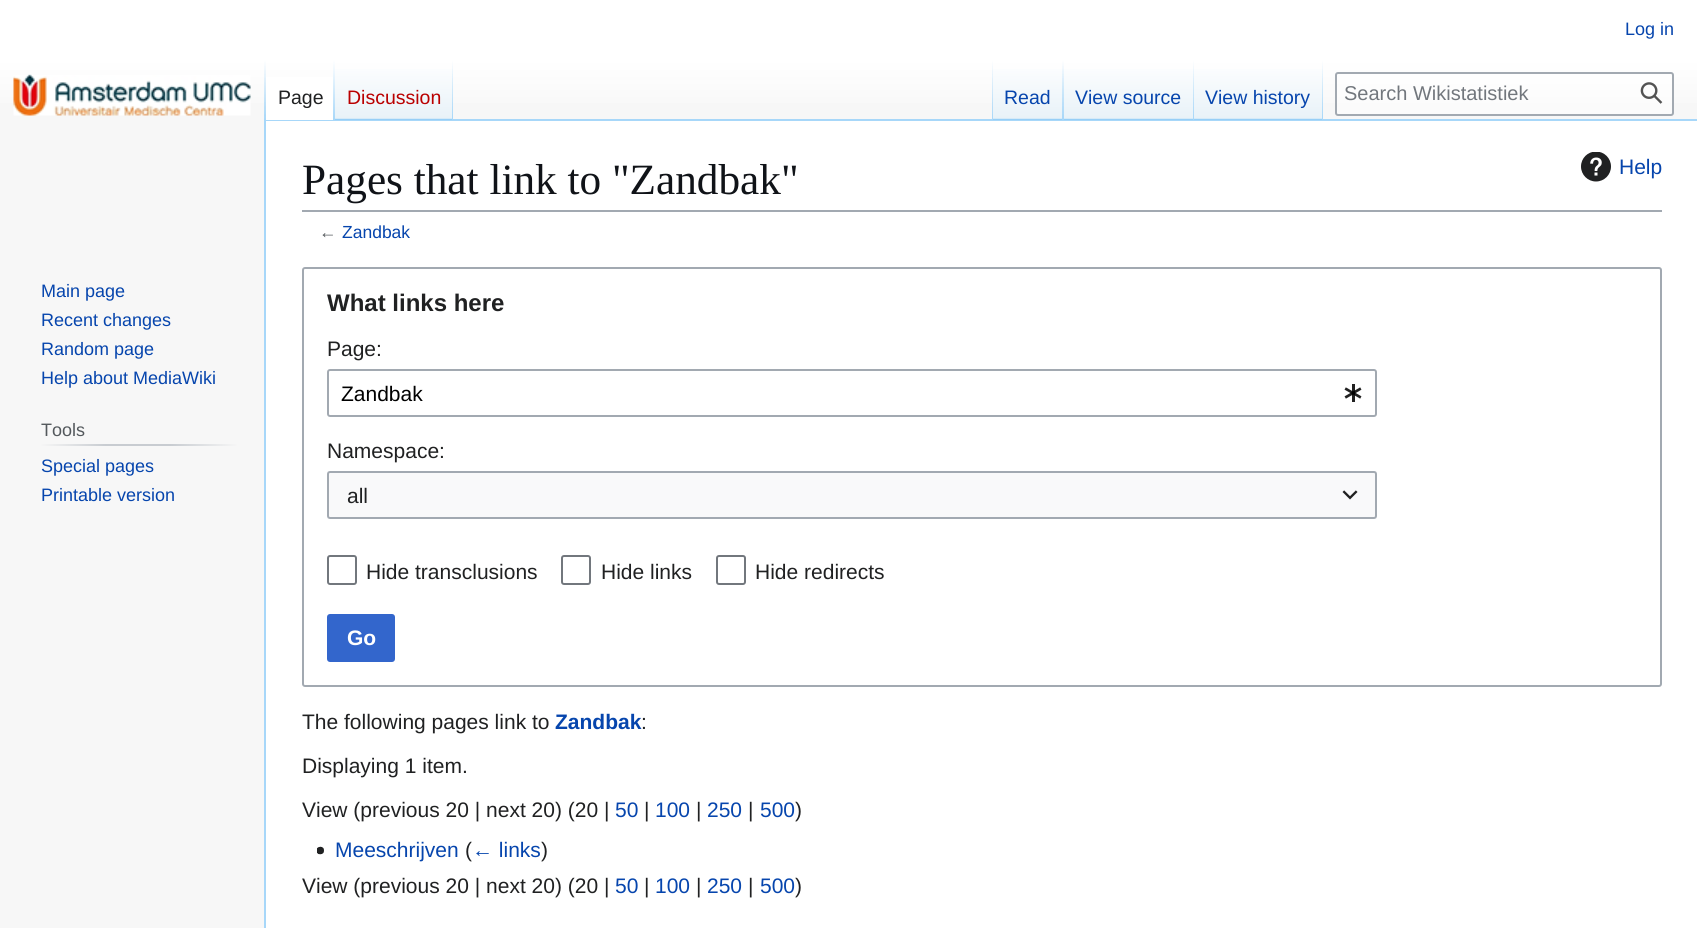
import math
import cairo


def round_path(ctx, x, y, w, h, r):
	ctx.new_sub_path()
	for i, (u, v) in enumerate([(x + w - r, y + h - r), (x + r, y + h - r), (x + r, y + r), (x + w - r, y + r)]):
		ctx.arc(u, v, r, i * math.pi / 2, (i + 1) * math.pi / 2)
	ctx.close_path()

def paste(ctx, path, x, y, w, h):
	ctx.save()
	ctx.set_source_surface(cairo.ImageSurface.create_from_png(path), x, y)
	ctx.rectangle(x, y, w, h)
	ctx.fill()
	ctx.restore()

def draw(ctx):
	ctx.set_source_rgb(0.965, 0.965, 0.965)
	ctx.paint()
	gradient = cairo.LinearGradient(849, 0, 849, 120)
	gradient.add_color_stop_rgba(0.5, 1, 1, 1, 1)
	gradient.add_color_stop_rgba(1, 0.965, 0.965, 0.965, 1)
	ctx.set_source(gradient)
	ctx.rectangle(0, 0, 1697, 103)
	ctx.fill()
	ctx.select_font_face('Liberation Sans')
	ctx.set_font_size(18)
	ctx.set_source_rgb(0.024, 0.271, 0.678)
	ctx.move_to(1625, 35)
	ctx.show_text('Log in')
	ctx.set_source_rgb(0.655, 0.843, 0.976)
	ctx.rectangle(264, 119, 1433, 2)
	ctx.fill()
	ctx.rectangle(264, 119, 2, 809)
	ctx.fill()
	gradient = cairo.LinearGradient(265, 60, 265, 120)
	gradient.add_color_stop_rgba(0, 0.655, 0.843, 0.976, 0)
	gradient.add_color_stop_rgba(1, 0.655, 0.843, 0.976, 1)
	ctx.set_source(gradient)
	ctx.rectangle(264, 60, 2, 60)
	ctx.fill()
	ctx.set_source_rgb(1, 1, 1)
	ctx.rectangle(266, 77, 67, 43)
	ctx.fill()
	gradient = cairo.LinearGradient(334, 60, 334, 120)
	gradient.add_color_stop_rgba(0, 1, 1, 1, 1)
	gradient.add_color_stop_rgba(1, 0.655, 0.843, 0.976, 1)
	ctx.set_source(gradient)
	ctx.rectangle(333, 60, 2, 60)
	ctx.fill()
	ctx.set_font_size(19.5)
	ctx.set_source_rgb(0.125, 0.129, 0.133)
	ctx.move_to(278, 104)
	ctx.show_text('Page')
	gradient = cairo.LinearGradient(394, 120, 394, 60)
	gradient.add_color_stop_rgba(0, 0.467, 0.757, 0.965, 1)
	gradient.add_color_stop_rgba(0.03, 0.91, 0.949, 0.973, 1)
	gradient.add_color_stop_rgba(1, 1, 1, 1, 1)
	ctx.set_source(gradient)
	ctx.rectangle(335, 69, 118, 51)
	ctx.fill()
	gradient = cairo.LinearGradient(452, 60, 452, 120)
	gradient.add_color_stop_rgba(0, 0.655, 0.843, 0.976, 0)
	gradient.add_color_stop_rgba(1, 0.655, 0.843, 0.976, 1)
	ctx.set_source(gradient)
	ctx.rectangle(452, 60, 1, 60)
	ctx.fill()
	ctx.set_source_rgb(0.729, 0, 0)
	ctx.move_to(347, 104)
	ctx.show_text('Discussion')
	gradient = cairo.LinearGradient(992, 60, 992, 120)
	gradient.add_color_stop_rgba(0, 0.655, 0.843, 0.976, 0)
	gradient.add_color_stop_rgba(1, 0.655, 0.843, 0.976, 1)
	ctx.set_source(gradient)
	ctx.rectangle(992, 60, 1, 60)
	ctx.fill()
	gradient = cairo.LinearGradient(1028, 120, 1028, 60)
	gradient.add_color_stop_rgba(0, 0.467, 0.757, 0.965, 1)
	gradient.add_color_stop_rgba(0.03, 0.91, 0.949, 0.973, 1)
	gradient.add_color_stop_rgba(1, 1, 1, 1, 1)
	ctx.set_source(gradient)
	ctx.rectangle(993, 69, 71, 51)
	ctx.fill()
	gradient = cairo.LinearGradient(1063, 60, 1063, 120)
	gradient.add_color_stop_rgba(0, 0.655, 0.843, 0.976, 0)
	gradient.add_color_stop_rgba(1, 0.655, 0.843, 0.976, 1)
	ctx.set_source(gradient)
	ctx.rectangle(1062, 60, 2, 60)
	ctx.fill()
	ctx.set_source_rgb(0.024, 0.271, 0.678)
	ctx.move_to(1004, 104)
	ctx.show_text('Read')
	gradient = cairo.LinearGradient(1129, 120, 1129, 60)
	gradient.add_color_stop_rgba(0, 0.467, 0.757, 0.965, 1)
	gradient.add_color_stop_rgba(0.03, 0.91, 0.949, 0.973, 1)
	gradient.add_color_stop_rgba(1, 1, 1, 1, 1)
	ctx.set_source(gradient)
	ctx.rectangle(1064, 69, 130, 51)
	ctx.fill()
	gradient = cairo.LinearGradient(1193, 60, 1193, 120)
	gradient.add_color_stop_rgba(0, 0.655, 0.843, 0.976, 0)
	gradient.add_color_stop_rgba(1, 0.655, 0.843, 0.976, 1)
	ctx.set_source(gradient)
	ctx.rectangle(1193, 60, 1, 60)
	ctx.fill()
	ctx.set_source_rgb(0.024, 0.271, 0.678)
	ctx.move_to(1075, 104)
	ctx.show_text('View source')
	gradient = cairo.LinearGradient(1259, 120, 1259, 60)
	gradient.add_color_stop_rgba(0, 0.467, 0.757, 0.965, 1)
	gradient.add_color_stop_rgba(0.03, 0.91, 0.949, 0.973, 1)
	gradient.add_color_stop_rgba(1, 1, 1, 1, 1)
	ctx.set_source(gradient)
	ctx.rectangle(1194, 69, 129, 51)
	ctx.fill()
	gradient = cairo.LinearGradient(1322, 60, 1322, 120)
	gradient.add_color_stop_rgba(0, 0.655, 0.843, 0.976, 0)
	gradient.add_color_stop_rgba(1, 0.655, 0.843, 0.976, 1)
	ctx.set_source(gradient)
	ctx.rectangle(1322, 60, 1, 60)
	ctx.fill()
	ctx.set_source_rgb(0.024, 0.271, 0.678)
	ctx.move_to(1205, 104)
	ctx.show_text('View history')
	ctx.set_source_rgba(1, 1, 1, 0.5)
	round_path(ctx, 1336, 73, 337, 42, 2)
	ctx.fill_preserve()
	ctx.set_source_rgb(0.635, 0.663, 0.694)
	ctx.stroke()
	ctx.set_font_size(20)
	ctx.set_source_rgb(0.447, 0.467, 0.49)
	ctx.move_to(1344, 100)
	ctx.show_text('Search Wikistatistiek')
	paste(ctx, 'media/1.png', 1640, 82, 23, 22)
	paste(ctx, 'media/2.png', 13, 74, 238, 42)
	ctx.set_font_size(18)
	ctx.set_source_rgb(0.024, 0.271, 0.678)
	for x, y, s in [
		(41, 297, 'Main page'),
		(41, 326, 'Recent changes'),
		(41, 355, 'Random page'),
		(41, 384, 'Help about MediaWiki'),
	]:
		ctx.move_to(x, y)
		ctx.show_text(s)
	gradient = cairo.LinearGradient(41, 445, 237, 445)
	gradient.add_color_stop_rgba(0, 0.965, 0.965, 0.965, 1)
	gradient.add_color_stop_rgba(0.33, 0.784, 0.8, 0.82, 1)
	gradient.add_color_stop_rgba(0.66, 0.784, 0.8, 0.82, 1)
	gradient.add_color_stop_rgba(1, 0.965, 0.965, 0.965, 1)
	ctx.set_source(gradient)
	ctx.rectangle(41, 444, 196, 2)
	ctx.fill()
	ctx.set_source_rgb(0.329, 0.349, 0.365)
	ctx.move_to(41, 436)
	ctx.show_text('Tools')
	ctx.set_source_rgb(0.024, 0.271, 0.678)
	ctx.move_to(41, 472)
	ctx.show_text('Special pages')
	ctx.move_to(41, 501)
	ctx.show_text('Printable version')
	ctx.set_source_rgb(1, 1, 1)
	ctx.rectangle(266, 121, 1431, 807)
	ctx.fill()
	ctx.set_source_rgb(0.635, 0.663, 0.694)
	ctx.rectangle(302, 210, 1360, 2)
	ctx.fill()
	ctx.select_font_face('Liberation Serif')
	ctx.set_font_size(43.25)
	ctx.set_source_rgb(0.063, 0.078, 0.094)
	ctx.move_to(302, 194)
	ctx.show_text('Pages that link to "Zandbak"')
	paste(ctx, 'media/3.png', 1581, 152, 30, 30)
	ctx.select_font_face('Liberation Sans')
	ctx.set_font_size(21)
	ctx.set_source_rgb(0.024, 0.271, 0.678)
	ctx.move_to(1619, 174)
	ctx.show_text('Help')
	ctx.set_font_size(17.5)
	ctx.set_source_rgb(0.329, 0.349, 0.365)
	ctx.move_to(319, 238)
	ctx.show_text('←')
	ctx.set_source_rgb(0.024, 0.271, 0.678)
	ctx.move_to(342, 238)
	ctx.show_text('Zandbak')
	round_path(ctx, 303, 268, 1358, 418, 2)
	ctx.set_source_rgb(0.635, 0.663, 0.694)
	ctx.stroke()
	ctx.select_font_face('Liberation Sans', cairo.FONT_SLANT_NORMAL, cairo.FONT_WEIGHT_BOLD)
	ctx.set_font_size(24)
	ctx.set_source_rgb(0.125, 0.129, 0.133)
	ctx.move_to(327, 311)
	ctx.show_text('What links here')
	ctx.select_font_face('Liberation Sans')
	ctx.set_font_size(21)
	ctx.move_to(327, 356)
	ctx.show_text('Page:')
	round_path(ctx, 328, 370, 1048, 46, 2)
	ctx.set_source_rgb(0.635, 0.663, 0.694)
	ctx.stroke()
	ctx.set_source_rgb(0, 0, 0)
	ctx.move_to(341, 401)
	ctx.show_text('Zandbak')
	paste(ctx, 'media/4.png', 1344, 384, 18, 18)
	ctx.set_source_rgb(0.125, 0.129, 0.133)
	ctx.move_to(327, 458)
	ctx.show_text('Namespace:')
	ctx.set_source_rgb(0.973, 0.976, 0.98)
	ctx.rectangle(327, 471, 1050, 48)
	ctx.fill()
	round_path(ctx, 328, 472, 1048, 46, 2)
	ctx.set_source_rgb(0.635, 0.663, 0.694)
	ctx.stroke()
	ctx.set_source_rgb(0.125, 0.129, 0.133)
	ctx.move_to(347, 503)
	ctx.show_text('all')
	paste(ctx, 'media/5.png', 1342, 490, 16, 10)
	round_path(ctx, 328, 556, 28, 28, 2)
	ctx.set_source_rgb(0.447, 0.467, 0.49)
	ctx.stroke()
	ctx.set_source_rgb(0.125, 0.129, 0.133)
	ctx.move_to(366, 579)
	ctx.show_text('Hide transclusions')
	round_path(ctx, 562, 556, 28, 28, 2)
	ctx.set_source_rgb(0.447, 0.467, 0.49)
	ctx.stroke()
	ctx.set_source_rgb(0.125, 0.129, 0.133)
	ctx.move_to(601, 579)
	ctx.show_text('Hide links')
	round_path(ctx, 717, 556, 28, 28, 2)
	ctx.set_source_rgb(0.447, 0.467, 0.49)
	ctx.stroke()
	ctx.set_source_rgb(0.125, 0.129, 0.133)
	ctx.move_to(755, 579)
	ctx.show_text('Hide redirects')
	ctx.set_source_rgb(0.2, 0.4, 0.8)
	round_path(ctx, 328, 615, 66, 46, 2)
	ctx.fill_preserve()
	ctx.stroke()
	ctx.select_font_face('Liberation Sans', cairo.FONT_SLANT_NORMAL, cairo.FONT_WEIGHT_BOLD)
	ctx.set_source_rgb(1, 1, 1)
	ctx.move_to(347, 645)
	ctx.show_text('Go')
	ctx.select_font_face('Liberation Sans')
	ctx.set_source_rgb(0.125, 0.129, 0.133)
	ctx.move_to(302, 729)
	ctx.show_text('The following pages link to')
	ctx.select_font_face('Liberation Sans', cairo.FONT_SLANT_NORMAL, cairo.FONT_WEIGHT_BOLD)
	ctx.set_source_rgb(0.024, 0.271, 0.678)
	ctx.move_to(555, 729)
	ctx.show_text('Zandbak')
	ctx.select_font_face('Liberation Sans')
	ctx.set_source_rgb(0.125, 0.129, 0.133)
	for x, y, s in [
		(641, 729, ':'),
		(302, 773, 'Displaying 1 item.'),
		(302, 817, 'View (previous 20 | next 20) (20 |'),
	]:
		ctx.move_to(x, y)
		ctx.show_text(s)
	ctx.set_source_rgb(0.024, 0.271, 0.678)
	ctx.move_to(615, 817)
	ctx.show_text('50')
	ctx.set_source_rgb(0.125, 0.129, 0.133)
	ctx.move_to(644, 817)
	ctx.show_text('|')
	ctx.set_source_rgb(0.024, 0.271, 0.678)
	ctx.move_to(655, 817)
	ctx.show_text('100')
	ctx.set_source_rgb(0.125, 0.129, 0.133)
	ctx.move_to(696, 817)
	ctx.show_text('|')
	ctx.set_source_rgb(0.024, 0.271, 0.678)
	ctx.move_to(707, 817)
	ctx.show_text('250')
	ctx.set_source_rgb(0.125, 0.129, 0.133)
	ctx.move_to(748, 817)
	ctx.show_text('|')
	ctx.set_source_rgb(0.024, 0.271, 0.678)
	ctx.move_to(760, 817)
	ctx.show_text('500')
	ctx.set_source_rgb(0.125, 0.129, 0.133)
	ctx.move_to(795, 817)
	ctx.show_text(')')
	paste(ctx, 'media/6.png', 317, 846, 7, 9)
	ctx.set_source_rgb(0.024, 0.271, 0.678)
	ctx.move_to(335, 857)
	ctx.show_text('Meeschrijven')
	ctx.set_source_rgb(0.125, 0.129, 0.133)
	ctx.move_to(465, 857)
	ctx.show_text('(')
	ctx.set_source_rgb(0.024, 0.271, 0.678)
	ctx.move_to(472, 857)
	ctx.show_text('← links')
	ctx.set_source_rgb(0.125, 0.129, 0.133)
	ctx.move_to(541, 857)
	ctx.show_text(')')
	ctx.move_to(302, 893)
	ctx.show_text('View (previous 20 | next 20) (20 |')
	ctx.set_source_rgb(0.024, 0.271, 0.678)
	ctx.move_to(615, 893)
	ctx.show_text('50')
	ctx.set_source_rgb(0.125, 0.129, 0.133)
	ctx.move_to(644, 893)
	ctx.show_text('|')
	ctx.set_source_rgb(0.024, 0.271, 0.678)
	ctx.move_to(655, 893)
	ctx.show_text('100')
	ctx.set_source_rgb(0.125, 0.129, 0.133)
	ctx.move_to(696, 893)
	ctx.show_text('|')
	ctx.set_source_rgb(0.024, 0.271, 0.678)
	ctx.move_to(707, 893)
	ctx.show_text('250')
	ctx.set_source_rgb(0.125, 0.129, 0.133)
	ctx.move_to(748, 893)
	ctx.show_text('|')
	ctx.set_source_rgb(0.024, 0.271, 0.678)
	ctx.move_to(760, 893)
	ctx.show_text('500')
	ctx.set_source_rgb(0.125, 0.129, 0.133)
	ctx.move_to(795, 893)
	ctx.show_text(')')


surface = cairo.ImageSurface(cairo.FORMAT_RGB24, 1697, 928)
ctx = cairo.Context(surface)
options = cairo.FontOptions()
options.set_hint_metrics(cairo.HINT_METRICS_OFF)
options.set_hint_style(cairo.HINT_STYLE_NONE)
ctx.set_font_options(options)
ctx.set_miter_limit(4)
draw(ctx)
surface.write_to_png('image.png')
